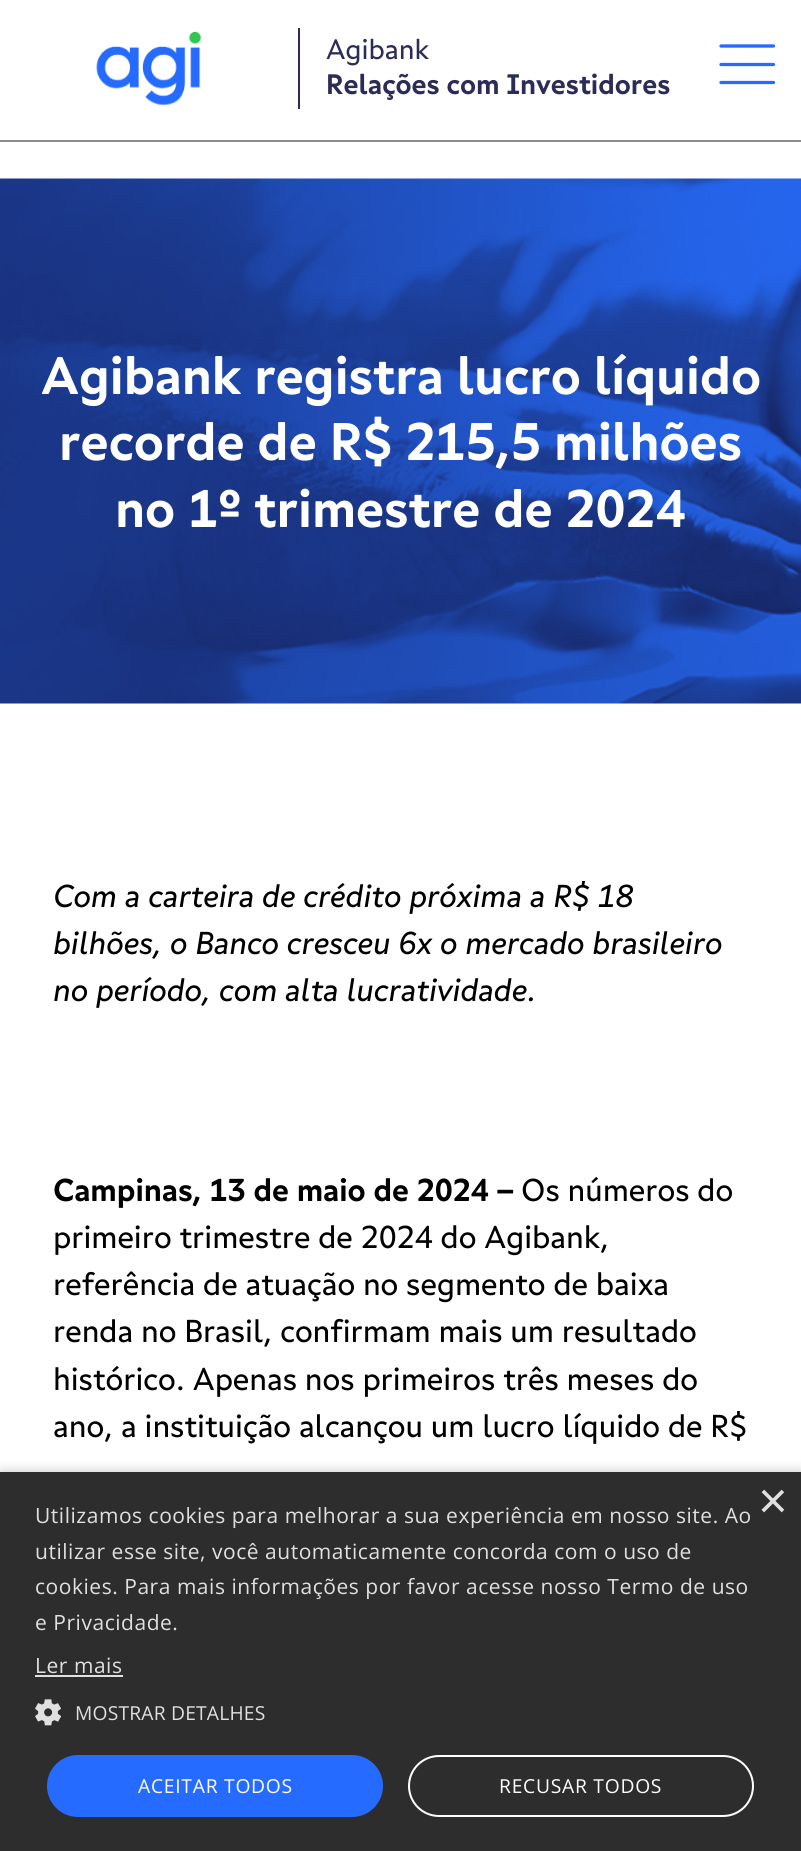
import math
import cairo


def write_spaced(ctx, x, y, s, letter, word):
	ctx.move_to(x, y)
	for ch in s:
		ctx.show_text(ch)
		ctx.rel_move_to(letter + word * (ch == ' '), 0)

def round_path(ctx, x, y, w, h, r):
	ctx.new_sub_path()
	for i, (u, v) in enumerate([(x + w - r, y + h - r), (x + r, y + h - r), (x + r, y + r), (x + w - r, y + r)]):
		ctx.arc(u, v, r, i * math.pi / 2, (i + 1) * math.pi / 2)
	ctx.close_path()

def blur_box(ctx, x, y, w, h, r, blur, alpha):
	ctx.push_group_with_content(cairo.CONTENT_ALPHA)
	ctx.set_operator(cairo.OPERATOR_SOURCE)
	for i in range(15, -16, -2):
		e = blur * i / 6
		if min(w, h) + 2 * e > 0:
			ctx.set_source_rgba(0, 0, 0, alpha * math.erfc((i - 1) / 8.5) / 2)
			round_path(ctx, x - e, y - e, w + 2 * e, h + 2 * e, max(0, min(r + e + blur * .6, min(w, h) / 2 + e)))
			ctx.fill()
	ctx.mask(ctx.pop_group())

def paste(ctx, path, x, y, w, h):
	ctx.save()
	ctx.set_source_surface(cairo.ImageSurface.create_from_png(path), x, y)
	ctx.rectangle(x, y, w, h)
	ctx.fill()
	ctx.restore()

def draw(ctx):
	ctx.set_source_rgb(1, 1, 1)
	ctx.paint()
	ctx.set_source_rgb(0.545, 0.545, 0.545)
	ctx.rectangle(0, 140, 801, 2)
	ctx.fill()
	paste(ctx, 'media/1.png', 96, 31, 105, 75)
	ctx.set_source_rgb(0.173, 0.173, 0.345)
	ctx.rectangle(298, 28, 2, 81)
	ctx.fill()
	ctx.select_font_face('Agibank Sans')
	ctx.set_font_size(28)
	ctx.move_to(326, 59)
	ctx.show_text('Agibank')
	ctx.select_font_face('Agibank Sans', cairo.FONT_SLANT_NORMAL, cairo.FONT_WEIGHT_BOLD)
	ctx.move_to(326, 94)
	ctx.show_text('Relações com Investidores')
	ctx.new_path()
	ctx.move_to(721, 46)
	ctx.line_to(773.5, 46)
	ctx.move_to(721, 64.5)
	ctx.line_to(773.5, 64.5)
	ctx.move_to(721, 82.5)
	ctx.line_to(773.5, 82.5)
	ctx.set_source_rgb(0.149, 0.42, 1)
	ctx.set_line_width(3.3)
	ctx.set_line_cap(cairo.LINE_CAP_ROUND)
	ctx.set_line_join(cairo.LINE_JOIN_ROUND)
	ctx.stroke()
	paste(ctx, 'media/2.png', 0, 178, 801, 526)
	ctx.set_font_size(52.5)
	ctx.set_source_rgb(1, 1, 1)
	for x, y, s in [
		(41, 394, 'Agibank registra lucro líquido'),
		(59, 460, 'recorde de R$ 215,5 milhões'),
		(115, 527, 'no 1º trimestre de 2024'),
	]:
		ctx.move_to(x, y)
		ctx.show_text(s)
	ctx.select_font_face('Agibank Sans', cairo.FONT_SLANT_ITALIC)
	ctx.set_font_size(31.5)
	ctx.set_source_rgb(0, 0, 0)
	for x, y, s in [
		(53, 907, 'Com a carteira de crédito próxima a R$ 18'),
		(53, 954, 'bilhões, o Banco cresceu 6x o mercado brasileiro'),
		(53, 1001, 'no período, com alta lucratividade.'),
	]:
		ctx.move_to(x, y)
		ctx.show_text(s)
	ctx.select_font_face('Agibank Sans', cairo.FONT_SLANT_NORMAL, cairo.FONT_WEIGHT_BOLD)
	ctx.move_to(53, 1201)
	ctx.show_text('Campinas, 13 de maio de 2024 –')
	ctx.select_font_face('Agibank Sans')
	for x, y, s in [
		(521, 1201, 'Os números do'),
		(53, 1248, 'primeiro trimestre de 2024 do Agibank,'),
		(53, 1295, 'referência de atuação no segmento de baixa'),
		(53, 1342, 'renda no Brasil, confirmam mais um resultado'),
		(53, 1390, 'histórico. Apenas nos primeiros três meses do'),
		(53, 1437, 'ano, a instituição alcançou um lucro líquido de R$'),
	]:
		ctx.move_to(x, y)
		ctx.show_text(s)
	ctx.set_source_rgb(0, 0, 0)
	blur_box(ctx, 2, 1475, 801, 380, 0, 7, 0.35)
	ctx.set_source_rgb(0.176, 0.176, 0.176)
	ctx.rectangle(0, 1472, 801, 379)
	ctx.fill()
	ctx.select_font_face('Liberation Sans')
	ctx.set_font_size(51)
	ctx.set_source_rgb(0.878, 0.878, 0.878)
	ctx.move_to(758, 1518)
	ctx.show_text('×')
	ctx.select_font_face('Open Sans')
	ctx.set_font_size(21)
	for x, y, s in [
		(35, 1523, 'Utilizamos cookies para melhorar a sua experiência em nosso site. Ao'),
		(35, 1559, 'utilizar esse site, você automaticamente concorda com o uso de'),
		(35, 1594, 'cookies. Para mais informações por favor acesse nosso Termo de uso'),
		(35, 1630, 'e Privacidade.'),
		(35, 1673, 'Ler mais'),
	]:
		write_spaced(ctx, x, y, s, 0.53, 0)
	ctx.rectangle(35, 1675, 88, 2)
	ctx.fill()
	paste(ctx, 'media/3.png', 35, 1699, 26, 27)
	ctx.set_font_size(19.25)
	write_spaced(ctx, 75, 1720, 'MOSTRAR DETALHES', 0.2, 0)
	ctx.set_source_rgb(0.149, 0.42, 1)
	round_path(ctx, 47, 1755, 336, 62, 31)
	ctx.fill()
	ctx.set_source_rgb(1, 1, 1)
	write_spaced(ctx, 138, 1793, 'ACEITAR TODOS', 0.75, 0)
	round_path(ctx, 409, 1756, 344, 60, 30)
	ctx.set_line_width(2)
	ctx.set_line_cap(cairo.LINE_CAP_BUTT)
	ctx.set_line_join(cairo.LINE_JOIN_MITER)
	ctx.stroke()
	write_spaced(ctx, 499, 1793, 'RECUSAR TODOS', 0.75, 0)


surface = cairo.ImageSurface(cairo.FORMAT_RGB24, 801, 1851)
ctx = cairo.Context(surface)
options = cairo.FontOptions()
options.set_hint_metrics(cairo.HINT_METRICS_OFF)
options.set_hint_style(cairo.HINT_STYLE_NONE)
ctx.set_font_options(options)
ctx.set_miter_limit(4)
draw(ctx)
surface.write_to_png('image.png')
